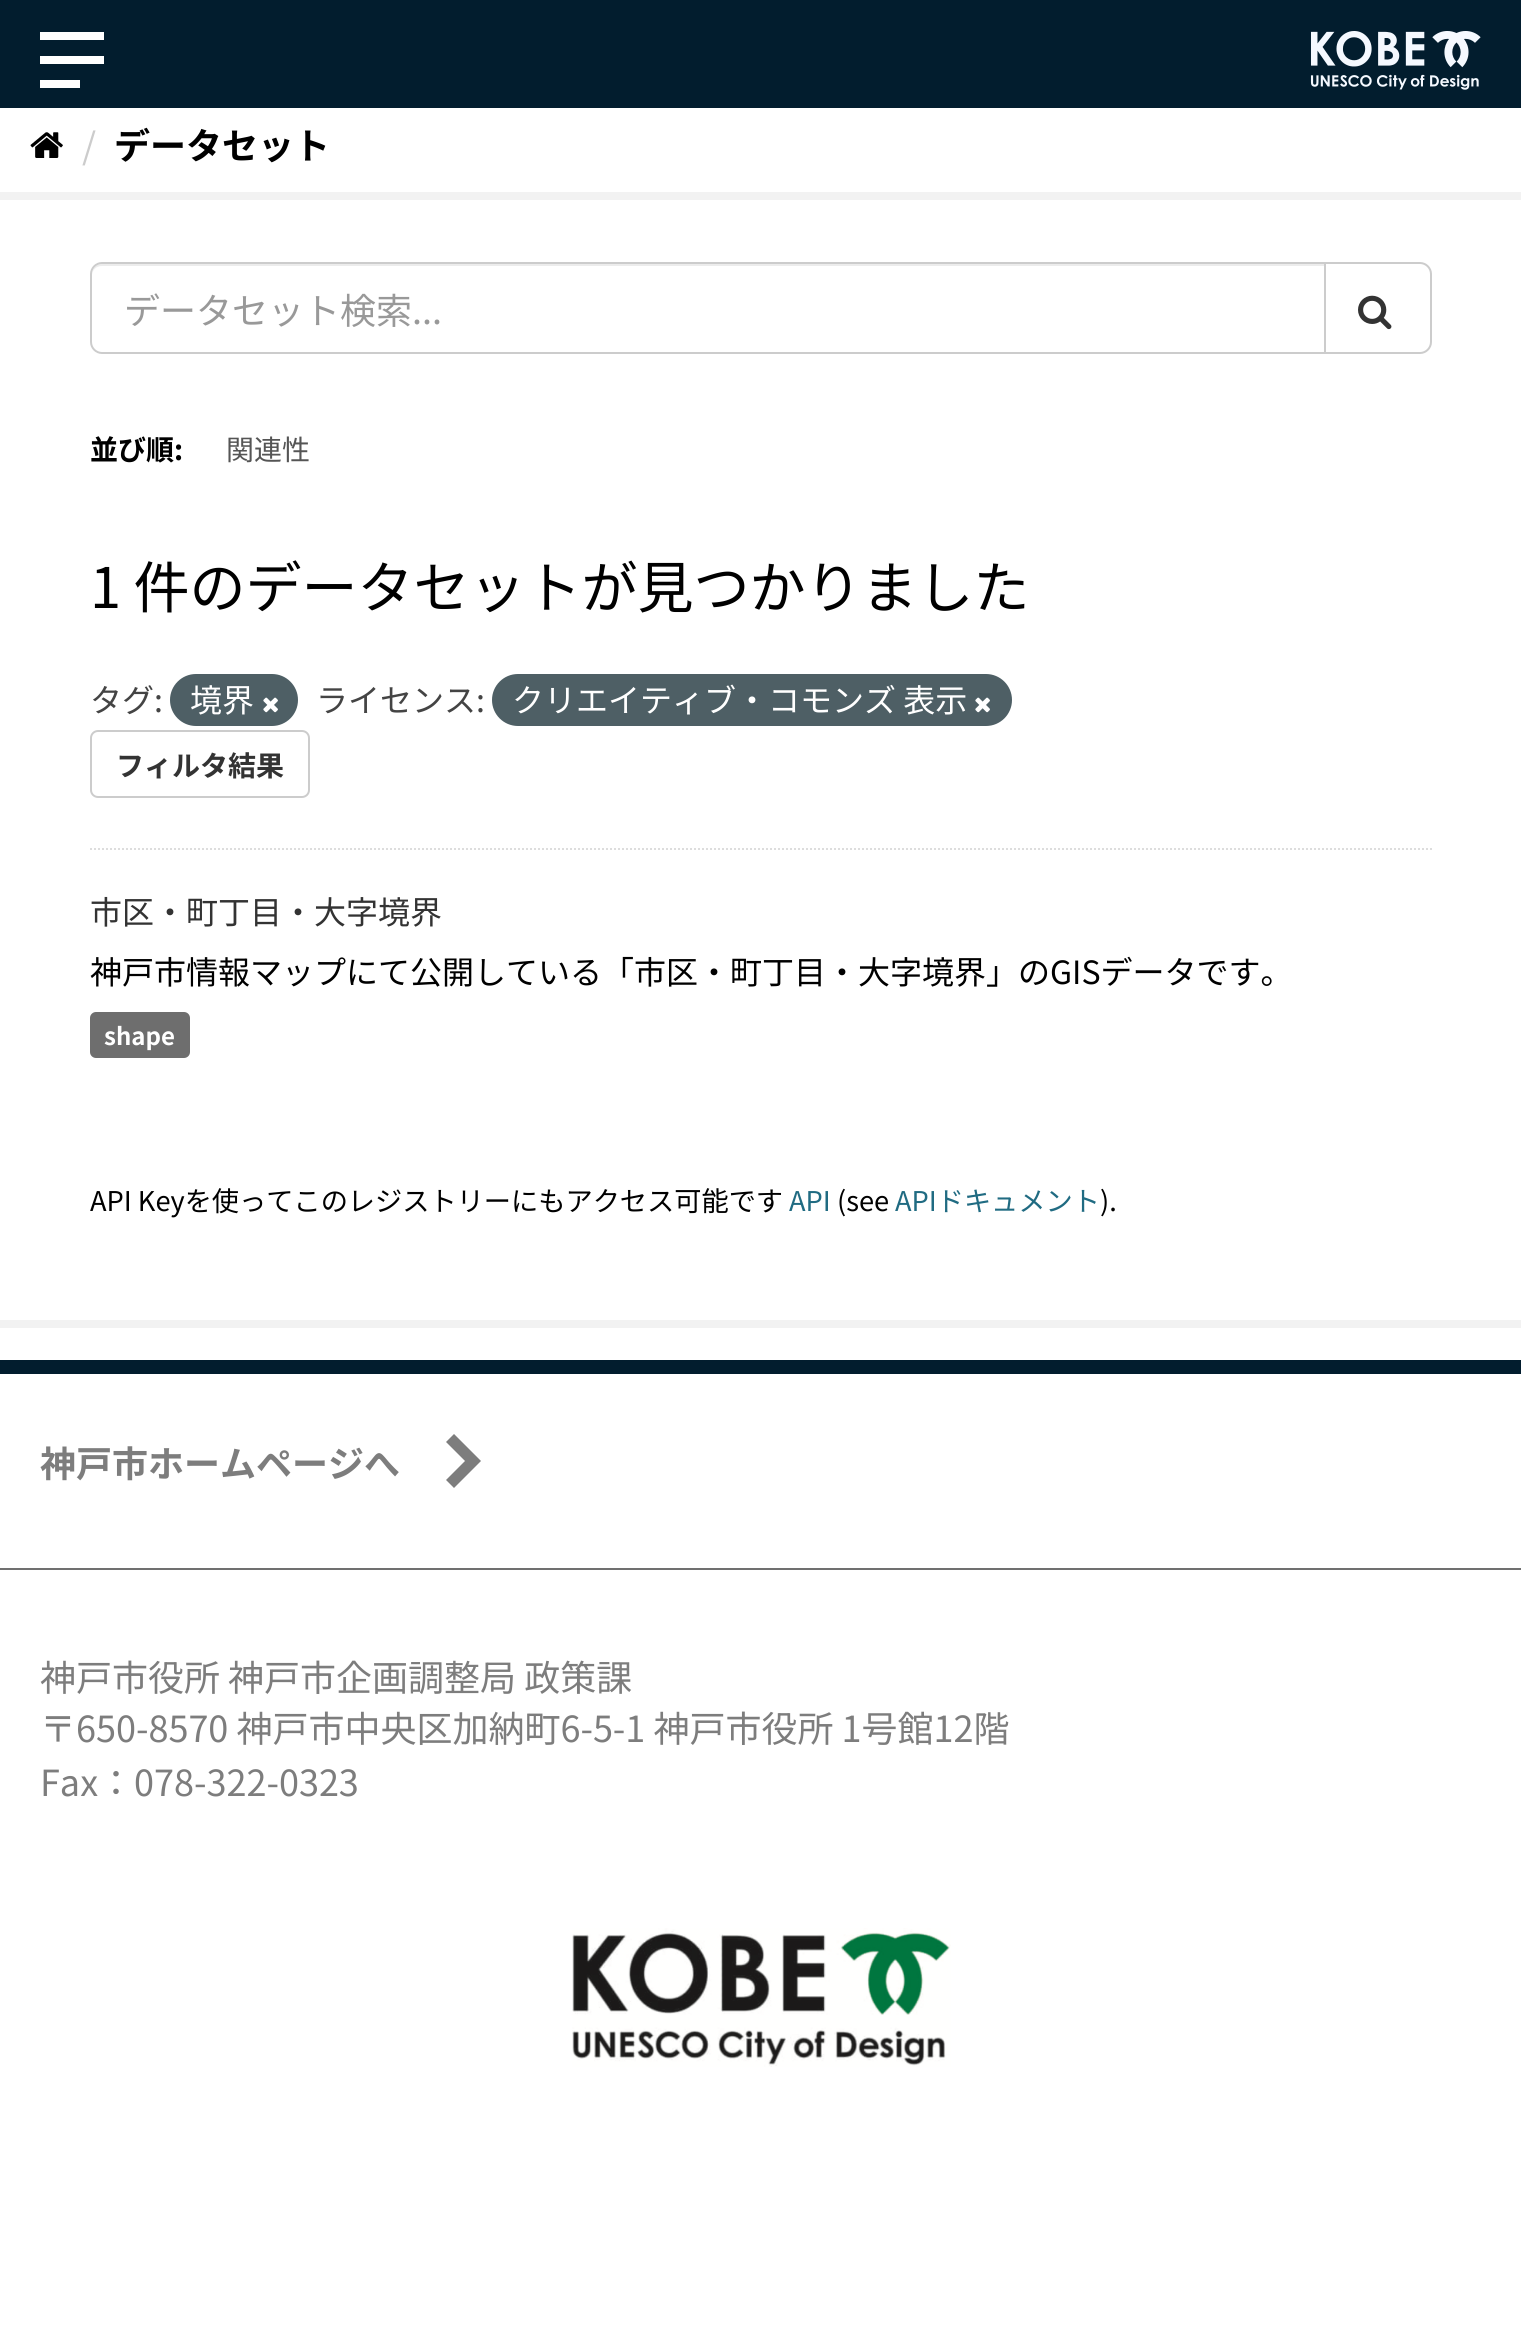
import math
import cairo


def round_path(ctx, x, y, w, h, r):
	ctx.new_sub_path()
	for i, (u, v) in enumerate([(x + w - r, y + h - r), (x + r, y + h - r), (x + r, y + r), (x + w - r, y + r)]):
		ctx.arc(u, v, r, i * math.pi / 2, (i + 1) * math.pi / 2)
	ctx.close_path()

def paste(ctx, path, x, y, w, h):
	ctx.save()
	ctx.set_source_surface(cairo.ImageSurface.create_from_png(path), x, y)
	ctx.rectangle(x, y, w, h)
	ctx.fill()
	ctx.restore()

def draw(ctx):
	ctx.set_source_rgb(1, 1, 1)
	ctx.paint()
	ctx.set_source_rgb(0.008, 0.114, 0.18)
	ctx.rectangle(0, 0, 1521, 108)
	ctx.fill()
	ctx.set_source_rgb(1, 1, 1)
	ctx.rectangle(40, 32, 64, 8)
	ctx.rectangle(40, 56, 64, 8)
	ctx.rectangle(40, 80, 40, 8)
	ctx.fill()
	paste(ctx, 'media/1.png', 1310, 31, 171, 59)
	paste(ctx, 'media/2.png', 30, 132, 33, 26)
	ctx.select_font_face('Noto Sans JP')
	ctx.set_font_size(36)
	ctx.set_source_rgb(0.8, 0.8, 0.8)
	ctx.move_to(82, 159)
	ctx.show_text('/')
	ctx.select_font_face('Noto Sans JP', cairo.FONT_SLANT_NORMAL, cairo.FONT_WEIGHT_BOLD)
	ctx.set_source_rgb(0, 0, 0)
	ctx.move_to(114, 159)
	ctx.show_text('データセット')
	ctx.rectangle(-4, 196, 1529, 1128)
	ctx.set_source_rgb(0.949, 0.949, 0.949)
	ctx.set_line_width(8)
	ctx.stroke()
	ctx.new_path()
	ctx.move_to(90, 849)
	ctx.line_to(1432, 849)
	ctx.set_source_rgb(0.867, 0.867, 0.867)
	ctx.set_line_width(2)
	ctx.set_dash([2, 2])
	ctx.stroke()
	ctx.set_source_rgb(0.925, 0.925, 0.925)
	ctx.new_path()
	ctx.move_to(102, 266)
	ctx.line_to(1324, 266)
	ctx.line_to(1324, 264)
	ctx.line_to(102, 264)
	ctx.curve_to(95, 264, 92, 270, 92, 276)
	ctx.curve_to(92, 270, 96, 266, 102, 266)
	ctx.close_path()
	ctx.fill()
	ctx.new_path()
	ctx.move_to(102, 263)
	ctx.line_to(1325, 263)
	ctx.line_to(1325, 353)
	ctx.line_to(102, 353)
	ctx.curve_to(96, 353, 91, 348, 91, 342)
	ctx.line_to(91, 274)
	ctx.curve_to(91, 268, 96, 263, 102, 263)
	ctx.close_path()
	ctx.set_source_rgb(0.8, 0.8, 0.8)
	ctx.set_dash([])
	ctx.stroke()
	ctx.select_font_face('Noto Sans JP')
	ctx.set_source_rgb(0.6, 0.6, 0.6)
	ctx.move_to(124, 324)
	ctx.show_text('データセット検索...')
	ctx.set_source_rgb(1, 1, 1)
	ctx.new_path()
	ctx.move_to(1325, 263)
	ctx.line_to(1420, 263)
	ctx.curve_to(1426, 263, 1431, 268, 1431, 274)
	ctx.line_to(1431, 342)
	ctx.curve_to(1431, 348, 1426, 353, 1420, 353)
	ctx.line_to(1325, 353)
	ctx.close_path()
	ctx.fill_preserve()
	ctx.set_source_rgb(0.8, 0.8, 0.8)
	ctx.stroke()
	paste(ctx, 'media/3.png', 1358, 295, 34, 35)
	ctx.select_font_face('Noto Sans JP', cairo.FONT_SLANT_NORMAL, cairo.FONT_WEIGHT_BOLD)
	ctx.set_font_size(28)
	ctx.set_source_rgb(0, 0, 0)
	ctx.move_to(90, 460)
	ctx.show_text('並び順:')
	ctx.select_font_face('Noto Sans JP')
	ctx.set_source_rgb(0.333, 0.333, 0.333)
	ctx.move_to(226, 460)
	ctx.show_text('関連性')
	ctx.set_font_size(56)
	ctx.set_source_rgb(0, 0, 0)
	ctx.move_to(90, 608)
	ctx.show_text('1 件のデータセットが見つかりました')
	ctx.set_font_size(32)
	ctx.set_source_rgb(0.267, 0.267, 0.267)
	ctx.move_to(90, 712)
	ctx.show_text('タグ:')
	ctx.set_source_rgb(0.306, 0.373, 0.396)
	round_path(ctx, 170, 674, 128, 52, 26)
	ctx.fill()
	ctx.set_source_rgb(1, 1, 1)
	ctx.move_to(190, 712)
	ctx.show_text('境界')
	paste(ctx, 'media/4.png', 263, 697, 15, 16)
	ctx.set_source_rgb(0.267, 0.267, 0.267)
	ctx.move_to(316, 712)
	ctx.show_text('ライセンス:')
	ctx.set_source_rgb(0.306, 0.373, 0.396)
	round_path(ctx, 492, 674, 520, 52, 26)
	ctx.fill()
	ctx.set_source_rgb(1, 1, 1)
	ctx.move_to(512, 712)
	ctx.show_text('クリエイティブ・コモンズ 表示')
	paste(ctx, 'media/4.png', 975, 697, 15, 16)
	round_path(ctx, 91, 731, 218, 66, 7)
	ctx.set_source_rgb(0.8, 0.8, 0.8)
	ctx.stroke()
	ctx.select_font_face('Noto Sans JP', cairo.FONT_SLANT_NORMAL, cairo.FONT_WEIGHT_BOLD)
	ctx.set_font_size(28)
	ctx.set_source_rgb(0.2, 0.2, 0.2)
	ctx.move_to(116, 776)
	ctx.show_text('フィルタ結果')
	ctx.select_font_face('Noto Sans JP')
	ctx.set_font_size(32)
	ctx.move_to(90, 924)
	ctx.show_text('市区・町丁目・大字境界')
	ctx.set_source_rgb(0, 0, 0)
	ctx.move_to(90, 984)
	ctx.show_text('神戸市情報マップにて公開している「市区・町丁目・大字境界」のGISデータです。')
	ctx.set_source_rgb(0.431, 0.431, 0.431)
	round_path(ctx, 90, 1012, 100, 46, 6)
	ctx.fill()
	ctx.select_font_face('Noto Sans JP', cairo.FONT_SLANT_NORMAL, cairo.FONT_WEIGHT_BOLD)
	ctx.set_font_size(24)
	ctx.set_source_rgb(1, 1, 1)
	ctx.move_to(104, 1045)
	ctx.show_text('shape')
	ctx.select_font_face('Noto Sans JP')
	ctx.set_font_size(27.2)
	ctx.set_source_rgb(0, 0, 0)
	ctx.move_to(90, 1211)
	ctx.show_text('API Keyを使ってこのレジストリーにもアクセス可能です')
	ctx.set_source_rgb(0.125, 0.42, 0.51)
	ctx.move_to(789, 1211)
	ctx.show_text('API')
	ctx.set_source_rgb(0, 0, 0)
	ctx.move_to(837, 1211)
	ctx.show_text('(see')
	ctx.set_source_rgb(0.125, 0.42, 0.51)
	ctx.move_to(895, 1211)
	ctx.show_text('APIドキュメント')
	ctx.set_source_rgb(0, 0, 0)
	ctx.move_to(1100, 1211)
	ctx.show_text(').')
	ctx.set_source_rgb(0.008, 0.114, 0.18)
	ctx.rectangle(0, 1360, 1521, 14)
	ctx.fill()
	ctx.set_source_rgb(0.49, 0.49, 0.49)
	ctx.new_path()
	ctx.move_to(481, 1461)
	ctx.line_to(454, 1488)
	ctx.line_to(446, 1480)
	ctx.line_to(465, 1461)
	ctx.line_to(446, 1442)
	ctx.line_to(454, 1434)
	ctx.close_path()
	ctx.fill()
	ctx.select_font_face('Noto Sans JP', cairo.FONT_SLANT_NORMAL, cairo.FONT_WEIGHT_BOLD)
	ctx.set_font_size(36)
	ctx.move_to(40, 1477)
	ctx.show_text('神戸市ホームページへ')
	ctx.set_source_rgb(0.439, 0.439, 0.439)
	ctx.rectangle(0, 1568, 1521, 2)
	ctx.fill()
	ctx.select_font_face('Noto Sans JP')
	ctx.set_source_rgb(0.49, 0.49, 0.49)
	for x, y, s in [
		(40, 1691, '神戸市役所 神戸市企画調整局 政策課'),
		(40, 1742, '〒650-8570 神戸市中央区加納町6-5-1 神戸市役所 1号館12階'),
		(40, 1796, 'Fax：078-322-0323'),
	]:
		ctx.move_to(x, y)
		ctx.show_text(s)
	paste(ctx, 'media/5.png', 572, 1928, 379, 139)


surface = cairo.ImageSurface(cairo.FORMAT_RGB24, 1521, 2351)
ctx = cairo.Context(surface)
options = cairo.FontOptions()
options.set_hint_metrics(cairo.HINT_METRICS_OFF)
options.set_hint_style(cairo.HINT_STYLE_NONE)
ctx.set_font_options(options)
ctx.set_miter_limit(4)
draw(ctx)
surface.write_to_png('image.png')
